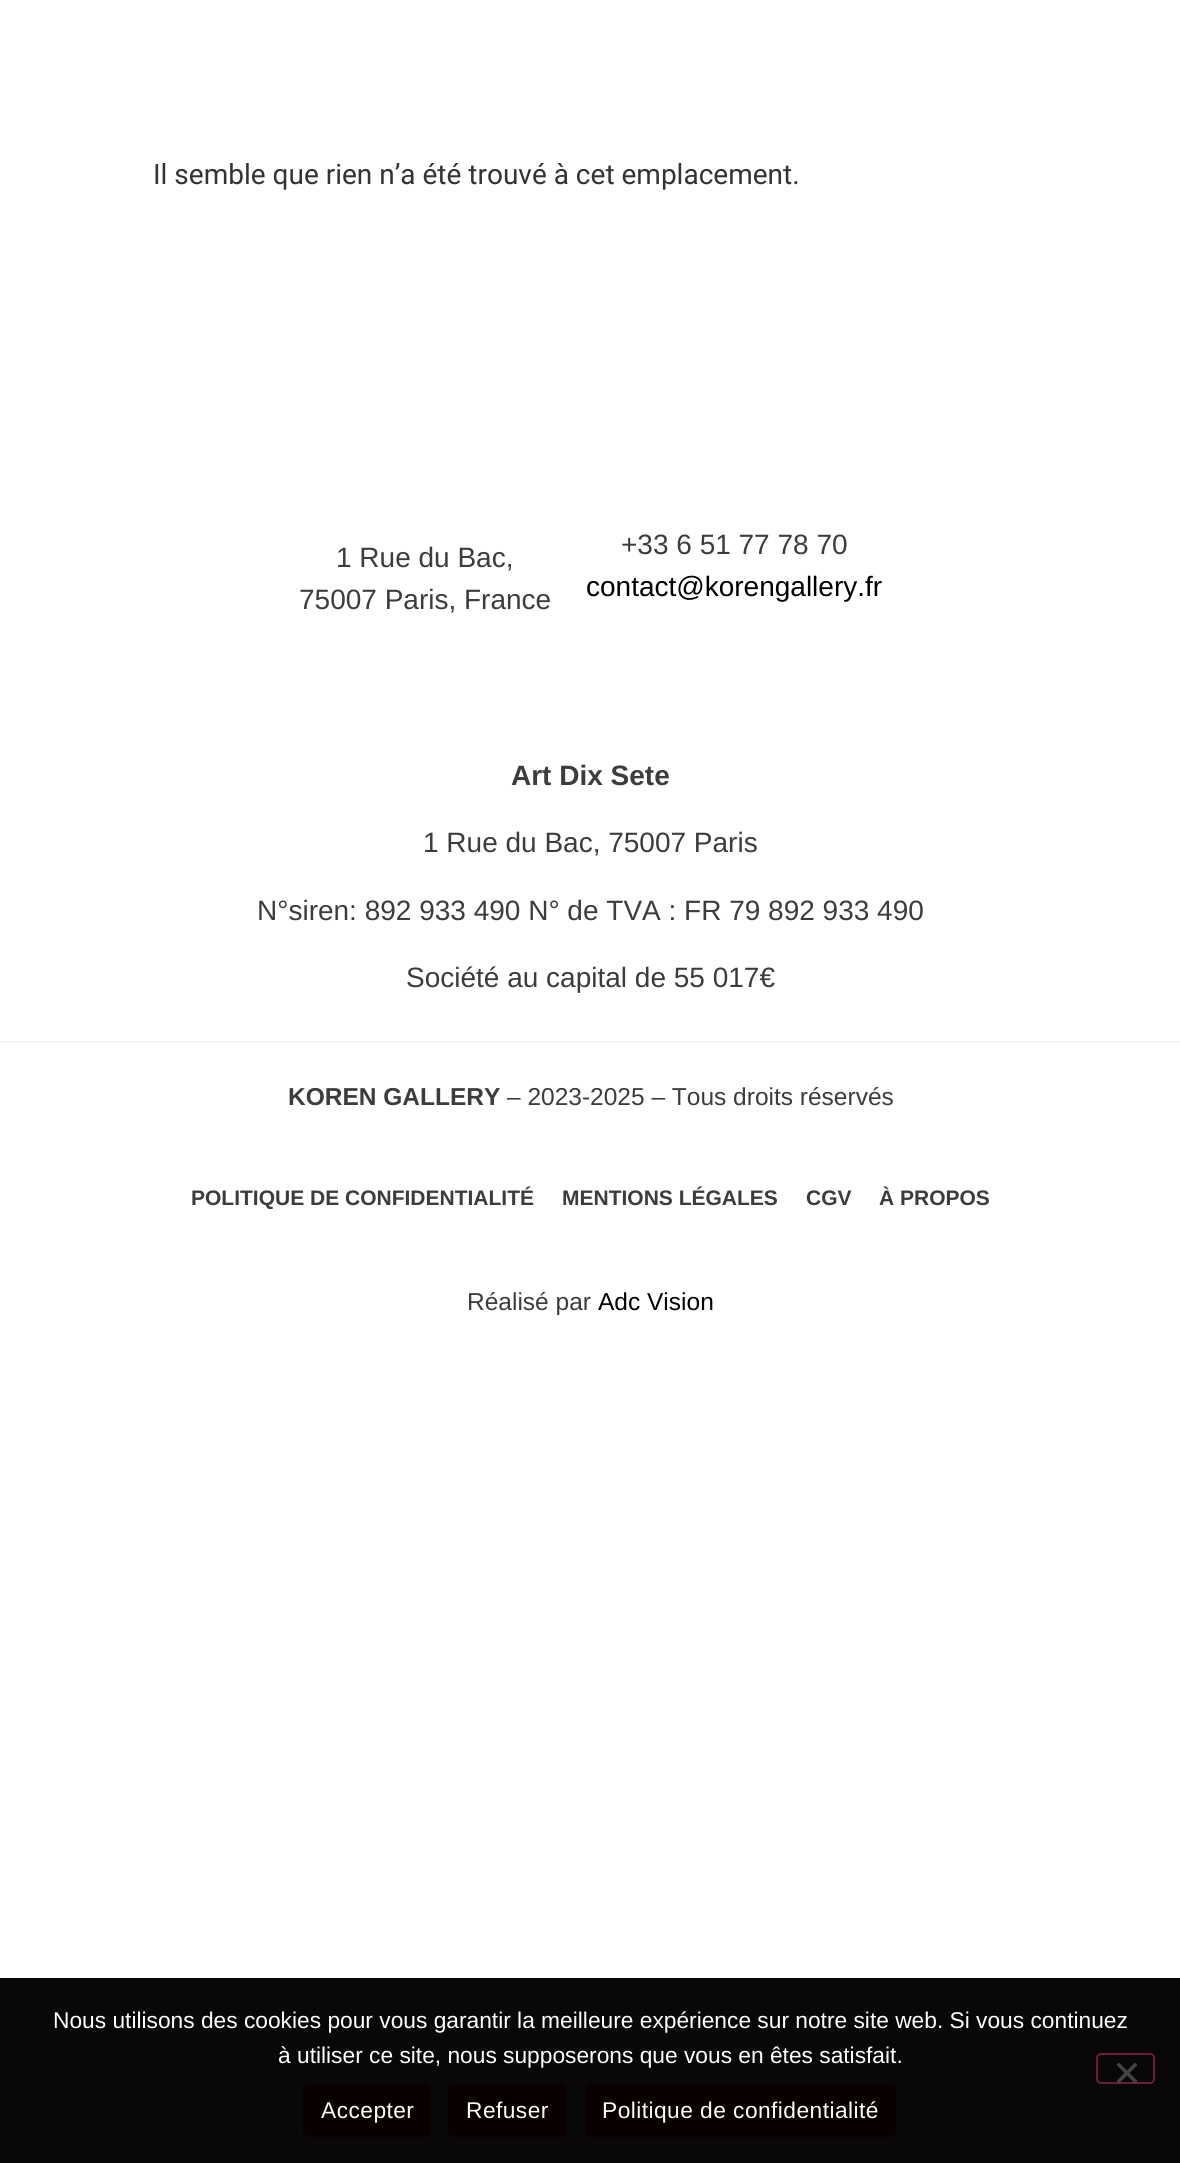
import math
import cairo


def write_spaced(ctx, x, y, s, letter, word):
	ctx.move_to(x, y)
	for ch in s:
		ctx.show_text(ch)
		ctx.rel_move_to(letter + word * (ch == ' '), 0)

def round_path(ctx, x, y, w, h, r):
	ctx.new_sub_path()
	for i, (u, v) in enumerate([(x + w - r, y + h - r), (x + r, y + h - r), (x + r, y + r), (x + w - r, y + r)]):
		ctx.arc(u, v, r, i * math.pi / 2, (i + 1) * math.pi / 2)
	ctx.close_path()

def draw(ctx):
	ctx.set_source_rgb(1, 1, 1)
	ctx.paint()
	ctx.select_font_face('Roboto')
	ctx.set_font_size(28)
	ctx.set_source_rgb(0.2, 0.2, 0.2)
	ctx.move_to(153, 184)
	ctx.show_text('Il semble que rien n’a été trouvé à cet emplacement.')
	ctx.select_font_face('Liberation Sans')
	ctx.set_source_rgb(0.235, 0.235, 0.235)
	for x, y, s in [
		(336, 567, '1 Rue du Bac,'),
		(299, 609, '75007 Paris, France'),
		(621, 554, '+33 6 51 77 78 70'),
	]:
		ctx.move_to(x, y)
		ctx.show_text(s)
	ctx.set_source_rgb(0, 0, 0)
	ctx.move_to(586, 596)
	ctx.show_text('contact@korengallery.fr')
	ctx.select_font_face('Liberation Sans', cairo.FONT_SLANT_NORMAL, cairo.FONT_WEIGHT_BOLD)
	ctx.set_source_rgb(0.235, 0.235, 0.235)
	ctx.move_to(511, 785)
	ctx.show_text('Art Dix Sete')
	ctx.select_font_face('Liberation Sans')
	for x, y, s in [
		(423, 852, '1 Rue du Bac, 75007 Paris'),
		(257, 920, 'N°siren: 892 933 490 N° de TVA : FR 79 892 933 490'),
		(406, 987, 'Société au capital de 55 017€'),
	]:
		ctx.move_to(x, y)
		ctx.show_text(s)
	ctx.set_source_rgb(0.953, 0.953, 0.953)
	ctx.rectangle(0, 1041, 1180, 2)
	ctx.fill()
	ctx.select_font_face('Liberation Sans', cairo.FONT_SLANT_NORMAL, cairo.FONT_WEIGHT_BOLD)
	ctx.set_font_size(24.5)
	ctx.set_source_rgb(0.235, 0.235, 0.235)
	ctx.move_to(288, 1105)
	ctx.show_text('KOREN GALLERY')
	ctx.select_font_face('Liberation Sans')
	ctx.move_to(507, 1105)
	ctx.show_text('– 2023-2025 – Tous droits réservés')
	ctx.select_font_face('Liberation Sans', cairo.FONT_SLANT_NORMAL, cairo.FONT_WEIGHT_BOLD)
	ctx.set_font_size(21)
	for x, y, s in [
		(191, 1205, 'POLITIQUE DE CONFIDENTIALITÉ'),
		(562, 1205, 'MENTIONS LÉGALES'),
		(806, 1205, 'CGV'),
		(879, 1205, 'À PROPOS'),
	]:
		ctx.move_to(x, y)
		ctx.show_text(s)
	ctx.select_font_face('Liberation Sans')
	ctx.set_font_size(24.5)
	ctx.move_to(467, 1310)
	ctx.show_text('Réalisé par')
	ctx.set_source_rgb(0, 0, 0)
	ctx.move_to(598, 1310)
	ctx.show_text('Adc Vision')
	ctx.set_source_rgb(0.039, 0.031, 0.031)
	ctx.rectangle(0, 1978, 1180, 185)
	ctx.fill()
	ctx.set_font_size(22.75)
	ctx.set_source_rgb(1, 1, 1)
	ctx.move_to(53, 2028)
	ctx.show_text('Nous utilisons des cookies pour vous garantir la meilleure expérience sur notre site web. Si vous continuez')
	ctx.move_to(278, 2063)
	ctx.show_text('à utiliser ce site, nous supposerons que vous en êtes satisfait.')
	round_path(ctx, 1097, 2054, 57, 29, 4)
	ctx.set_source_rgb(0.42, 0.118, 0.216)
	ctx.stroke()
	ctx.set_source_rgb(0.271, 0.267, 0.267)
	ctx.new_path()
	ctx.move_to(1135, 2062.5)
	ctx.line_to(1137.5, 2065)
	ctx.line_to(1119, 2083.5)
	ctx.line_to(1116.5, 2081)
	ctx.close_path()
	ctx.fill()
	ctx.new_path()
	ctx.move_to(1116.5, 2065)
	ctx.line_to(1119, 2062.5)
	ctx.line_to(1137.5, 2081)
	ctx.line_to(1135, 2083.5)
	ctx.close_path()
	ctx.fill()
	ctx.set_source_rgb(0.039, 0, 0)
	round_path(ctx, 303, 2084, 128, 53, 5)
	ctx.fill()
	ctx.set_source_rgb(1, 1, 1)
	write_spaced(ctx, 321, 2118, 'Accepter', 0.45, 0)
	ctx.set_source_rgb(0.039, 0, 0)
	round_path(ctx, 448, 2084, 119, 53, 5)
	ctx.fill()
	ctx.set_source_rgb(1, 1, 1)
	write_spaced(ctx, 466, 2118, 'Refuser', 0.45, 0)
	ctx.set_source_rgb(0.039, 0, 0)
	round_path(ctx, 585, 2084, 311, 53, 5)
	ctx.fill()
	ctx.set_source_rgb(1, 1, 1)
	write_spaced(ctx, 602, 2118, 'Politique de confidentialité', 0.45, 0)


surface = cairo.ImageSurface(cairo.FORMAT_RGB24, 1180, 2163)
ctx = cairo.Context(surface)
options = cairo.FontOptions()
options.set_hint_metrics(cairo.HINT_METRICS_OFF)
options.set_hint_style(cairo.HINT_STYLE_NONE)
ctx.set_font_options(options)
ctx.set_miter_limit(4)
draw(ctx)
surface.write_to_png('image.png')
